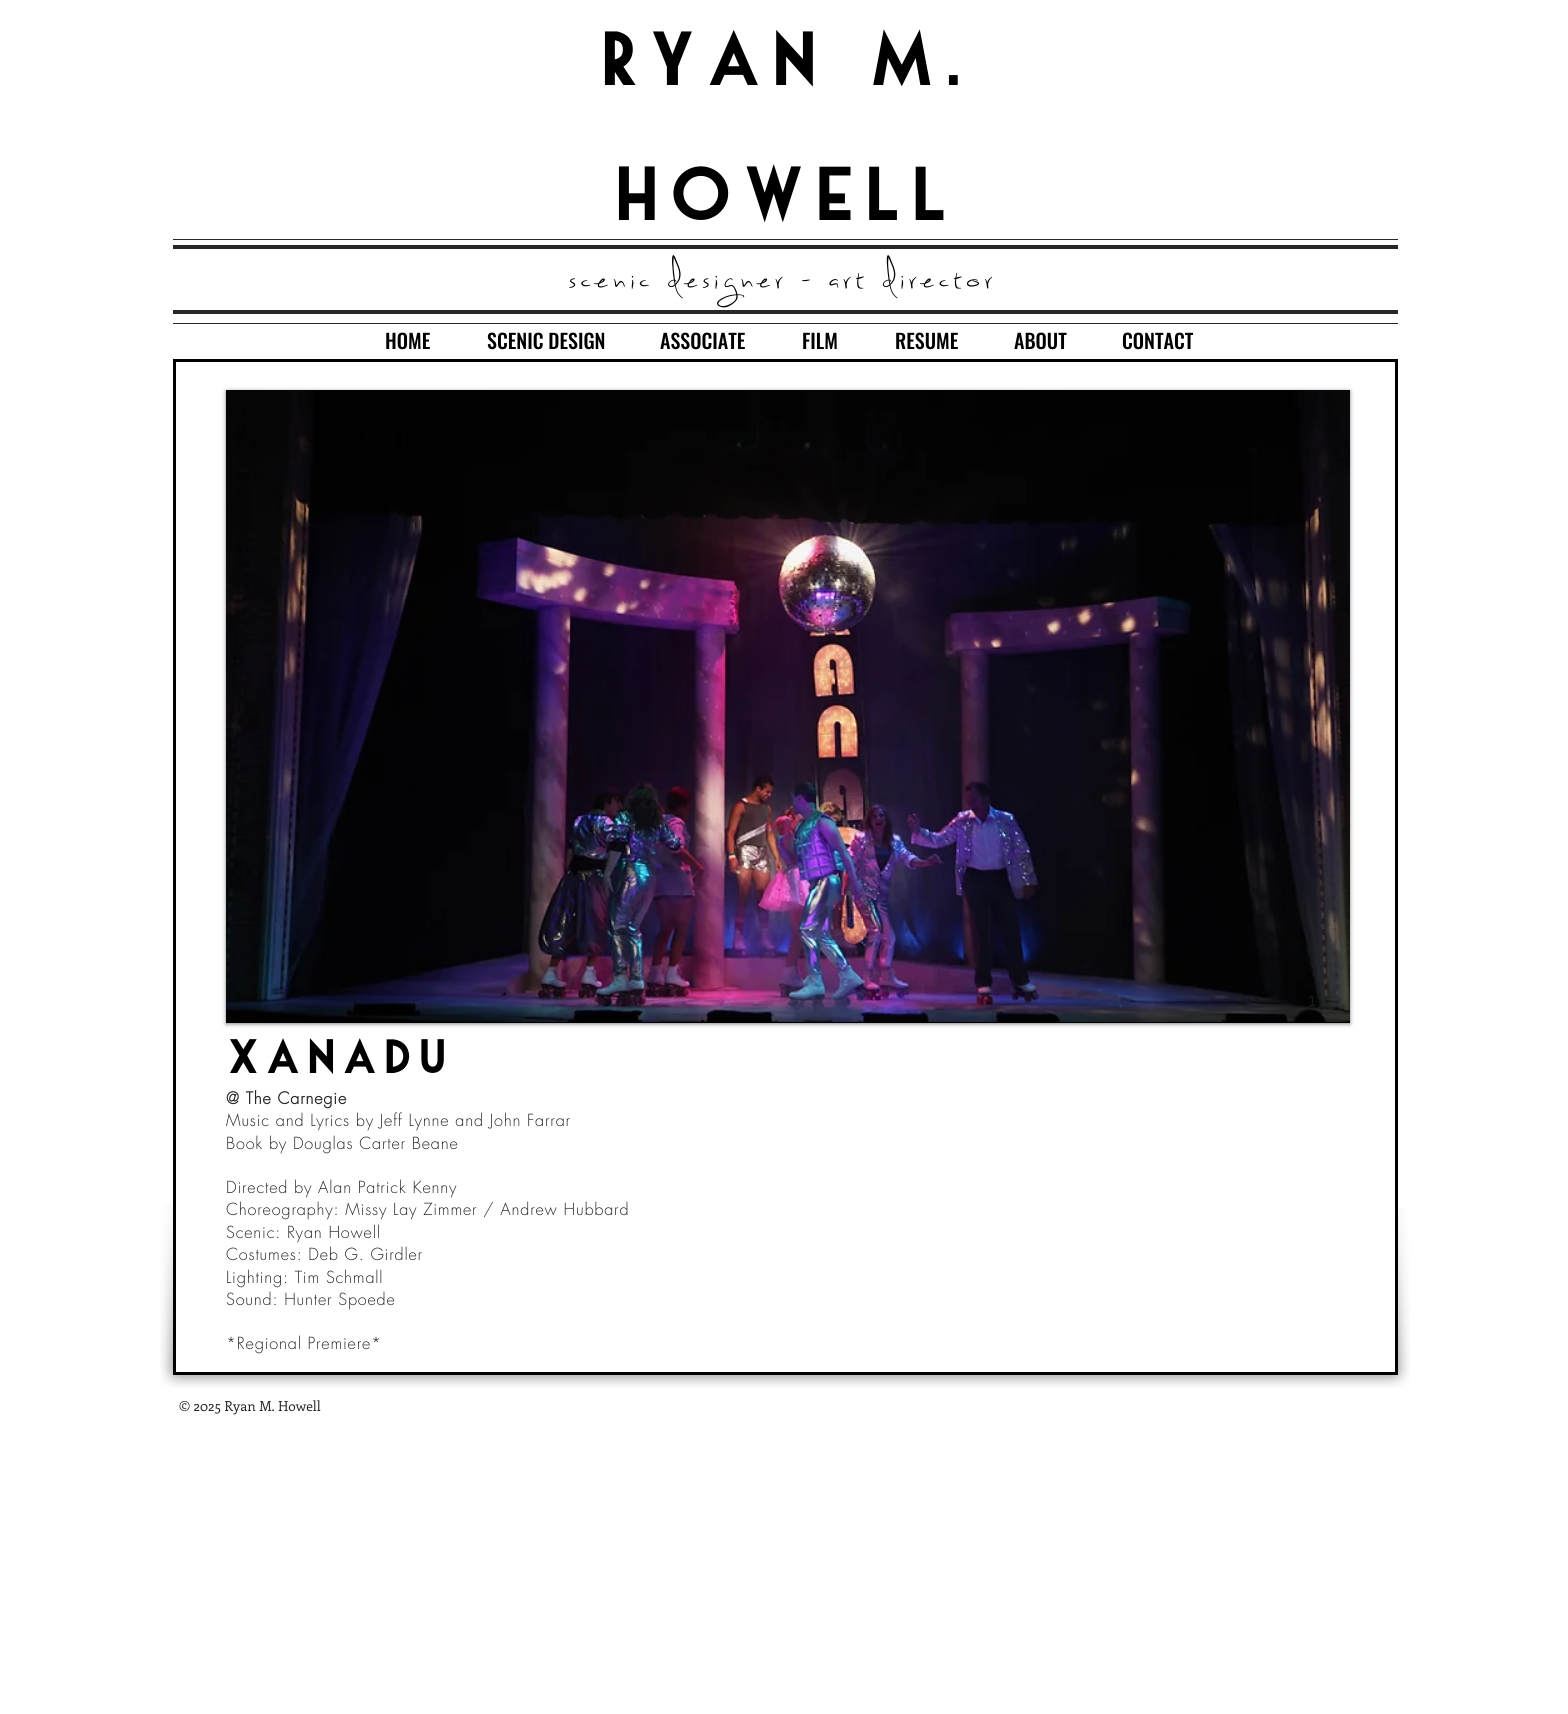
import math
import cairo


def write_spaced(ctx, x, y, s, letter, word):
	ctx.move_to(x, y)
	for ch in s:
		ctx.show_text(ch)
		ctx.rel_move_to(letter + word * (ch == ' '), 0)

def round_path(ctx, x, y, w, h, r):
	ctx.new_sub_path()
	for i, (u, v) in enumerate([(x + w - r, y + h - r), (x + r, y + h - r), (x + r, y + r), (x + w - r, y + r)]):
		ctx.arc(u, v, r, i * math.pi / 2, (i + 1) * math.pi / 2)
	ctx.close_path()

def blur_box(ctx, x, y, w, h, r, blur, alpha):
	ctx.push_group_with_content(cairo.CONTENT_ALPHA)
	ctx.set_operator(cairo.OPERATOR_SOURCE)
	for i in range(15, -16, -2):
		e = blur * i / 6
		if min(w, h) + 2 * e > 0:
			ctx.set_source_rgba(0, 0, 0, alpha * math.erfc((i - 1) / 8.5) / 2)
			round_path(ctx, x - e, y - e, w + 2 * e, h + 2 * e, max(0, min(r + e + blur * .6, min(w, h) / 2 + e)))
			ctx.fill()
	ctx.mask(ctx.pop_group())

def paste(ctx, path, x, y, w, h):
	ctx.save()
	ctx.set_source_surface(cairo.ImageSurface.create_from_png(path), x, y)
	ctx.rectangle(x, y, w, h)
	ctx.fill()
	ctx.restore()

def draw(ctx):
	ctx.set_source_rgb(1, 1, 1)
	ctx.paint()
	ctx.select_font_face('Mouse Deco', cairo.FONT_SLANT_NORMAL, cairo.FONT_WEIGHT_BOLD)
	ctx.set_font_size(71.25)
	ctx.set_source_rgb(0, 0, 0)
	write_spaced(ctx, 598, 85, 'RYAN M.', 7, 0)
	write_spaced(ctx, 612, 220, 'HOWELL', 7, 0)
	ctx.set_source_rgb(0.157, 0.149, 0.149)
	ctx.rectangle(173, 239, 1225, 1)
	ctx.fill()
	ctx.rectangle(173, 245, 1225, 4)
	ctx.fill()
	ctx.select_font_face('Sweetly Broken')
	ctx.set_font_size(45)
	ctx.set_source_rgb(0, 0, 0)
	write_spaced(ctx, 569, 287, 'scenic designer - art director', 4.5, 0)
	ctx.set_source_rgb(0.157, 0.149, 0.149)
	ctx.rectangle(173, 310, 1225, 4)
	ctx.fill()
	ctx.rectangle(173, 323, 1225, 1)
	ctx.fill()
	ctx.select_font_face('Oswald Medium')
	ctx.set_font_size(20)
	ctx.set_source_rgb(0, 0, 0)
	for x, y, s in [
		(385, 349, 'HOME'),
		(487, 349, 'SCENIC DESIGN'),
		(660, 349, 'ASSOCIATE'),
		(802, 349, 'FILM'),
		(895, 349, 'RESUME'),
		(1014, 349, 'ABOUT'),
		(1122, 349, 'CONTACT'),
	]:
		ctx.move_to(x, y)
		ctx.show_text(s)
	paste(ctx, 'media/1.png', 160, 1203, 57, 185)
	paste(ctx, 'media/2.png', 216, 1375, 1138, 13)
	paste(ctx, 'media/3.png', 1353, 1207, 57, 181)
	ctx.set_source_rgb(1, 1, 1)
	ctx.rectangle(176, 1203, 1219, 169)
	ctx.fill()
	ctx.rectangle(174.5, 360.5, 1222, 1013)
	ctx.set_source_rgb(0, 0, 0)
	ctx.set_line_width(3)
	ctx.stroke()
	ctx.set_source_rgb(0, 0, 0)
	blur_box(ctx, 226, 391, 1124, 633, 0, 2, 0.5)
	ctx.set_source_rgb(0, 0, 0)
	ctx.rectangle(226, 1022, 1124, 1)
	ctx.fill()
	paste(ctx, 'media/4.png', 226, 390, 1124, 632)
	ctx.select_font_face('Liberation Sans')
	ctx.set_font_size(15)
	ctx.set_source_rgb(0.098, 0.102, 0.106)
	ctx.move_to(1308, 1006)
	ctx.show_text('1')
	ctx.select_font_face('Mouse Deco', cairo.FONT_SLANT_NORMAL, cairo.FONT_WEIGHT_BOLD)
	ctx.set_font_size(45)
	ctx.set_source_rgb(0, 0, 0)
	write_spaced(ctx, 226, 1073, 'XANADU', 4.5, 0)
	ctx.select_font_face('futura', cairo.FONT_SLANT_NORMAL, cairo.FONT_WEIGHT_BOLD)
	ctx.set_font_size(16.25)
	ctx.set_source_rgb(0.153, 0.153, 0.153)
	write_spaced(ctx, 226, 1104, '@ The Carnegie', 0.8, 0)
	ctx.select_font_face('futura Light')
	for x, y, s in [
		(226, 1126, 'Music and Lyrics by Jeff Lynne and John Farrar'),
		(226, 1149, 'Book by Douglas Carter Beane'),
		(226, 1193, 'Directed by Alan Patrick Kenny'),
		(226, 1215, 'Choreography: Missy Lay Zimmer / Andrew Hubbard'),
		(226, 1238, 'Scenic: Ryan Howell'),
		(226, 1260, 'Costumes: Deb G. Girdler'),
		(226, 1283, 'Lighting: Tim Schmall'),
		(226, 1305, 'Sound: Hunter Spoede'),
		(226, 1349, '*Regional Premiere*'),
	]:
		write_spaced(ctx, x, y, s, 0.8, 0)
	ctx.select_font_face('Enriqueta')
	ctx.set_font_size(13.75)
	ctx.move_to(179, 1411)
	ctx.show_text('© 2025 Ryan M. Howell')


surface = cairo.ImageSurface(cairo.FORMAT_RGB24, 1568, 1714)
ctx = cairo.Context(surface)
options = cairo.FontOptions()
options.set_hint_metrics(cairo.HINT_METRICS_OFF)
options.set_hint_style(cairo.HINT_STYLE_NONE)
ctx.set_font_options(options)
ctx.set_miter_limit(4)
draw(ctx)
surface.write_to_png('image.png')
